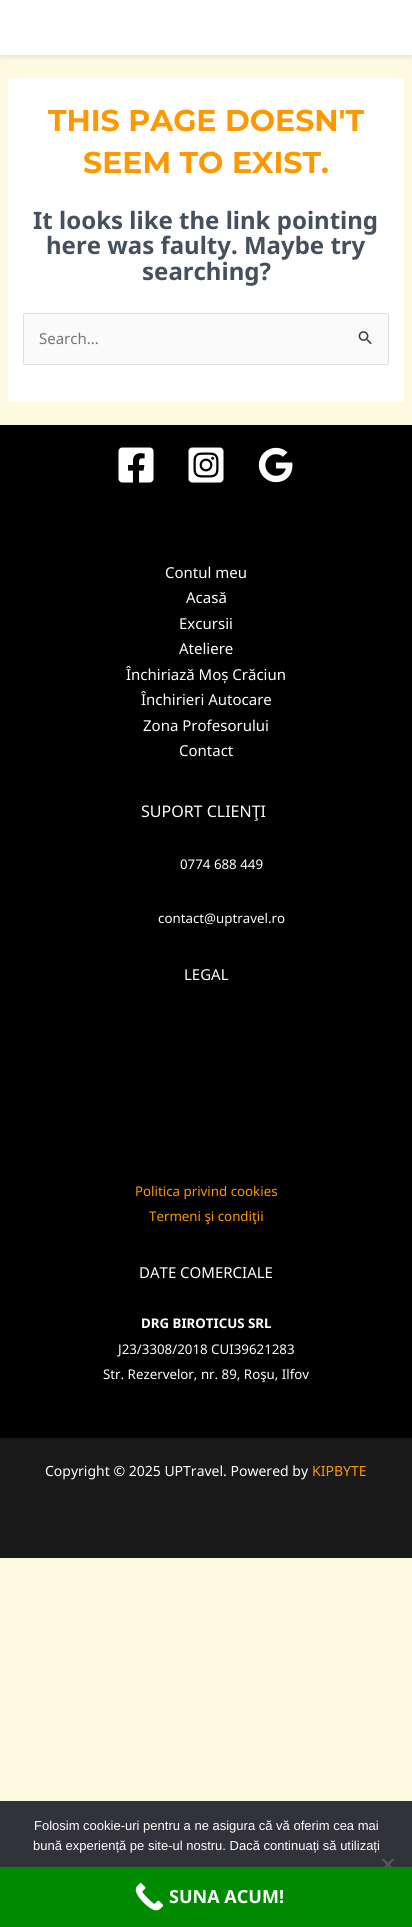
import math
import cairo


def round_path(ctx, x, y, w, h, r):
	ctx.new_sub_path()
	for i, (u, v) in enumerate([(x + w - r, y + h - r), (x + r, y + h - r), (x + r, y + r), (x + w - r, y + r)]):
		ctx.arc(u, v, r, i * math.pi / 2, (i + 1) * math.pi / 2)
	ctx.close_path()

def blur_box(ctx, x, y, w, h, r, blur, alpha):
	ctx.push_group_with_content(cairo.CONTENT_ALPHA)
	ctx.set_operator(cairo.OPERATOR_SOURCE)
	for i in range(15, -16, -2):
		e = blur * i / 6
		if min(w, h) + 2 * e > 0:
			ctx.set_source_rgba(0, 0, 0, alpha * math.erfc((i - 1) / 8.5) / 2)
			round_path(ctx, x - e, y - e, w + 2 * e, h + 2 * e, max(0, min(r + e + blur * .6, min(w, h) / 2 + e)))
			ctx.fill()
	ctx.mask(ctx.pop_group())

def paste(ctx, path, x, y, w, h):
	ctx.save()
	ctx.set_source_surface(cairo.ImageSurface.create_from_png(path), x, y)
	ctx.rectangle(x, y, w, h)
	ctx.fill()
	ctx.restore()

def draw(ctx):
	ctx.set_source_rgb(0.996, 0.976, 0.882)
	ctx.paint()
	ctx.set_source_rgb(0, 0, 0)
	blur_box(ctx, 0, 0, 412, 55, 0, 4, 0.15)
	ctx.set_source_rgb(1, 1, 1)
	ctx.rectangle(0, 0, 412, 55)
	ctx.fill()
	ctx.rectangle(8, 78, 396, 324)
	ctx.fill()
	ctx.select_font_face('Montserrat Thin')
	ctx.set_font_size(30)
	ctx.set_source_rgb(0.992, 0.596, 0)
	ctx.move_to(48, 131)
	ctx.show_text('THIS PAGE DOESN\'T')
	ctx.move_to(83, 173)
	ctx.show_text('SEEM TO EXIST.')
	ctx.select_font_face('Noto Sans', cairo.FONT_SLANT_NORMAL, cairo.FONT_WEIGHT_BOLD)
	ctx.set_font_size(24)
	ctx.set_source_rgb(0.271, 0.31, 0.369)
	for x, y, s in [
		(33, 229, 'It looks like the link pointing'),
		(46, 254, 'here was faulty. Maybe try'),
		(142, 280, 'searching?'),
	]:
		ctx.move_to(x, y)
		ctx.show_text(s)
	ctx.set_source_rgb(0.98, 0.98, 0.98)
	round_path(ctx, 23.5, 313.5, 365, 51, 1.5)
	ctx.fill_preserve()
	ctx.set_source_rgb(0.867, 0.867, 0.867)
	ctx.set_line_width(1)
	ctx.stroke()
	ctx.select_font_face('Noto Sans')
	ctx.set_font_size(15)
	ctx.set_source_rgb(0.459, 0.459, 0.459)
	ctx.move_to(39, 344)
	ctx.show_text('Search...')
	paste(ctx, 'media/1.png', 358, 331, 14, 14)
	ctx.set_source_rgb(0, 0, 0)
	ctx.rectangle(0, 425, 412, 1013)
	ctx.fill()
	paste(ctx, 'media/2.png', 118, 447, 36, 36)
	paste(ctx, 'media/3.png', 188, 447, 36, 36)
	paste(ctx, 'media/4.png', 258, 447, 35, 36)
	ctx.set_source_rgb(1, 1, 1)
	for x, y, s in [
		(165, 578, 'Contul meu'),
		(186, 603, 'Acasă'),
		(179, 629, 'Excursii'),
		(179, 654, 'Ateliere'),
		(126, 680, 'Închiriază Moș Crăciun'),
		(141, 705, 'Închirieri Autocare'),
		(143, 731, 'Zona Profesorului'),
		(179, 756, 'Contact'),
	]:
		ctx.move_to(x, y)
		ctx.show_text(s)
	ctx.set_font_size(16)
	ctx.move_to(141, 817)
	ctx.show_text('SUPORT CLIENŢI')
	ctx.set_font_size(13.3)
	ctx.move_to(180, 869)
	ctx.show_text('0774 688 449')
	ctx.move_to(158, 923)
	ctx.show_text('contact@uptravel.ro')
	ctx.set_font_size(15)
	ctx.move_to(184, 980)
	ctx.show_text('LEGAL')
	ctx.set_font_size(13.3)
	ctx.set_source_rgb(0.992, 0.596, 0)
	ctx.move_to(135, 1196)
	ctx.show_text('Politica privind cookies')
	ctx.move_to(149, 1221)
	ctx.show_text('Termeni şi condiţii')
	ctx.set_font_size(15)
	ctx.set_source_rgb(1, 1, 1)
	ctx.move_to(139, 1278)
	ctx.show_text('DATE COMERCIALE')
	ctx.select_font_face('Noto Sans', cairo.FONT_SLANT_NORMAL, cairo.FONT_WEIGHT_BOLD)
	ctx.set_font_size(13.3)
	ctx.move_to(141, 1328)
	ctx.show_text('DRG BIROTICUS SRL')
	ctx.select_font_face('Noto Sans')
	ctx.move_to(118, 1354)
	ctx.show_text('J23/3308/2018 CUI39621283')
	ctx.move_to(103, 1379)
	ctx.show_text('Str. Rezervelor, nr. 89, Roşu, Ilfov')
	ctx.set_source_rgb(0.098, 0.098, 0.098)
	ctx.rectangle(0, 1438, 412, 120)
	ctx.fill()
	ctx.set_font_size(14)
	ctx.set_source_rgb(1, 1, 1)
	ctx.move_to(45, 1476)
	ctx.show_text('Copyright © 2025 UPTravel. Powered by')
	ctx.set_source_rgb(0.992, 0.596, 0)
	ctx.move_to(312, 1476)
	ctx.show_text('KIPBYTE')
	ctx.set_source_rgb(0.196, 0.196, 0.227)
	ctx.rectangle(0, 1801, 412, 66)
	ctx.fill()
	ctx.select_font_face('Liberation Sans')
	ctx.set_font_size(13)
	ctx.set_source_rgb(1, 1, 1)
	ctx.move_to(34, 1830)
	ctx.show_text('Folosim cookie-uri pentru a ne asigura că vă oferim cea mai')
	ctx.move_to(33, 1850)
	ctx.show_text('bună experiență pe site-ul nostru. Dacă continuați să utilizați')
	ctx.set_source_rgb(0.349, 0.349, 0.365)
	ctx.new_path()
	ctx.move_to(392.5, 1858.5)
	ctx.line_to(394, 1860)
	ctx.line_to(383.5, 1870.5)
	ctx.line_to(382, 1869)
	ctx.close_path()
	ctx.fill()
	ctx.new_path()
	ctx.move_to(382, 1860)
	ctx.line_to(383.5, 1858.5)
	ctx.line_to(394, 1869)
	ctx.line_to(392.5, 1870.5)
	ctx.close_path()
	ctx.fill()
	ctx.set_source_rgb(0, 0.541, 0)
	ctx.rectangle(0, 1867, 412, 60)
	ctx.fill()
	paste(ctx, 'media/5.png', 135, 1883, 29, 28)
	ctx.select_font_face('Noto Sans', cairo.FONT_SLANT_NORMAL, cairo.FONT_WEIGHT_BOLD)
	ctx.set_font_size(18)
	ctx.set_source_rgb(1, 1, 1)
	ctx.move_to(169, 1903)
	ctx.show_text('SUNA ACUM!')


surface = cairo.ImageSurface(cairo.FORMAT_RGB24, 412, 1927)
ctx = cairo.Context(surface)
options = cairo.FontOptions()
options.set_hint_metrics(cairo.HINT_METRICS_OFF)
options.set_hint_style(cairo.HINT_STYLE_NONE)
ctx.set_font_options(options)
ctx.set_miter_limit(4)
draw(ctx)
surface.write_to_png('image.png')
